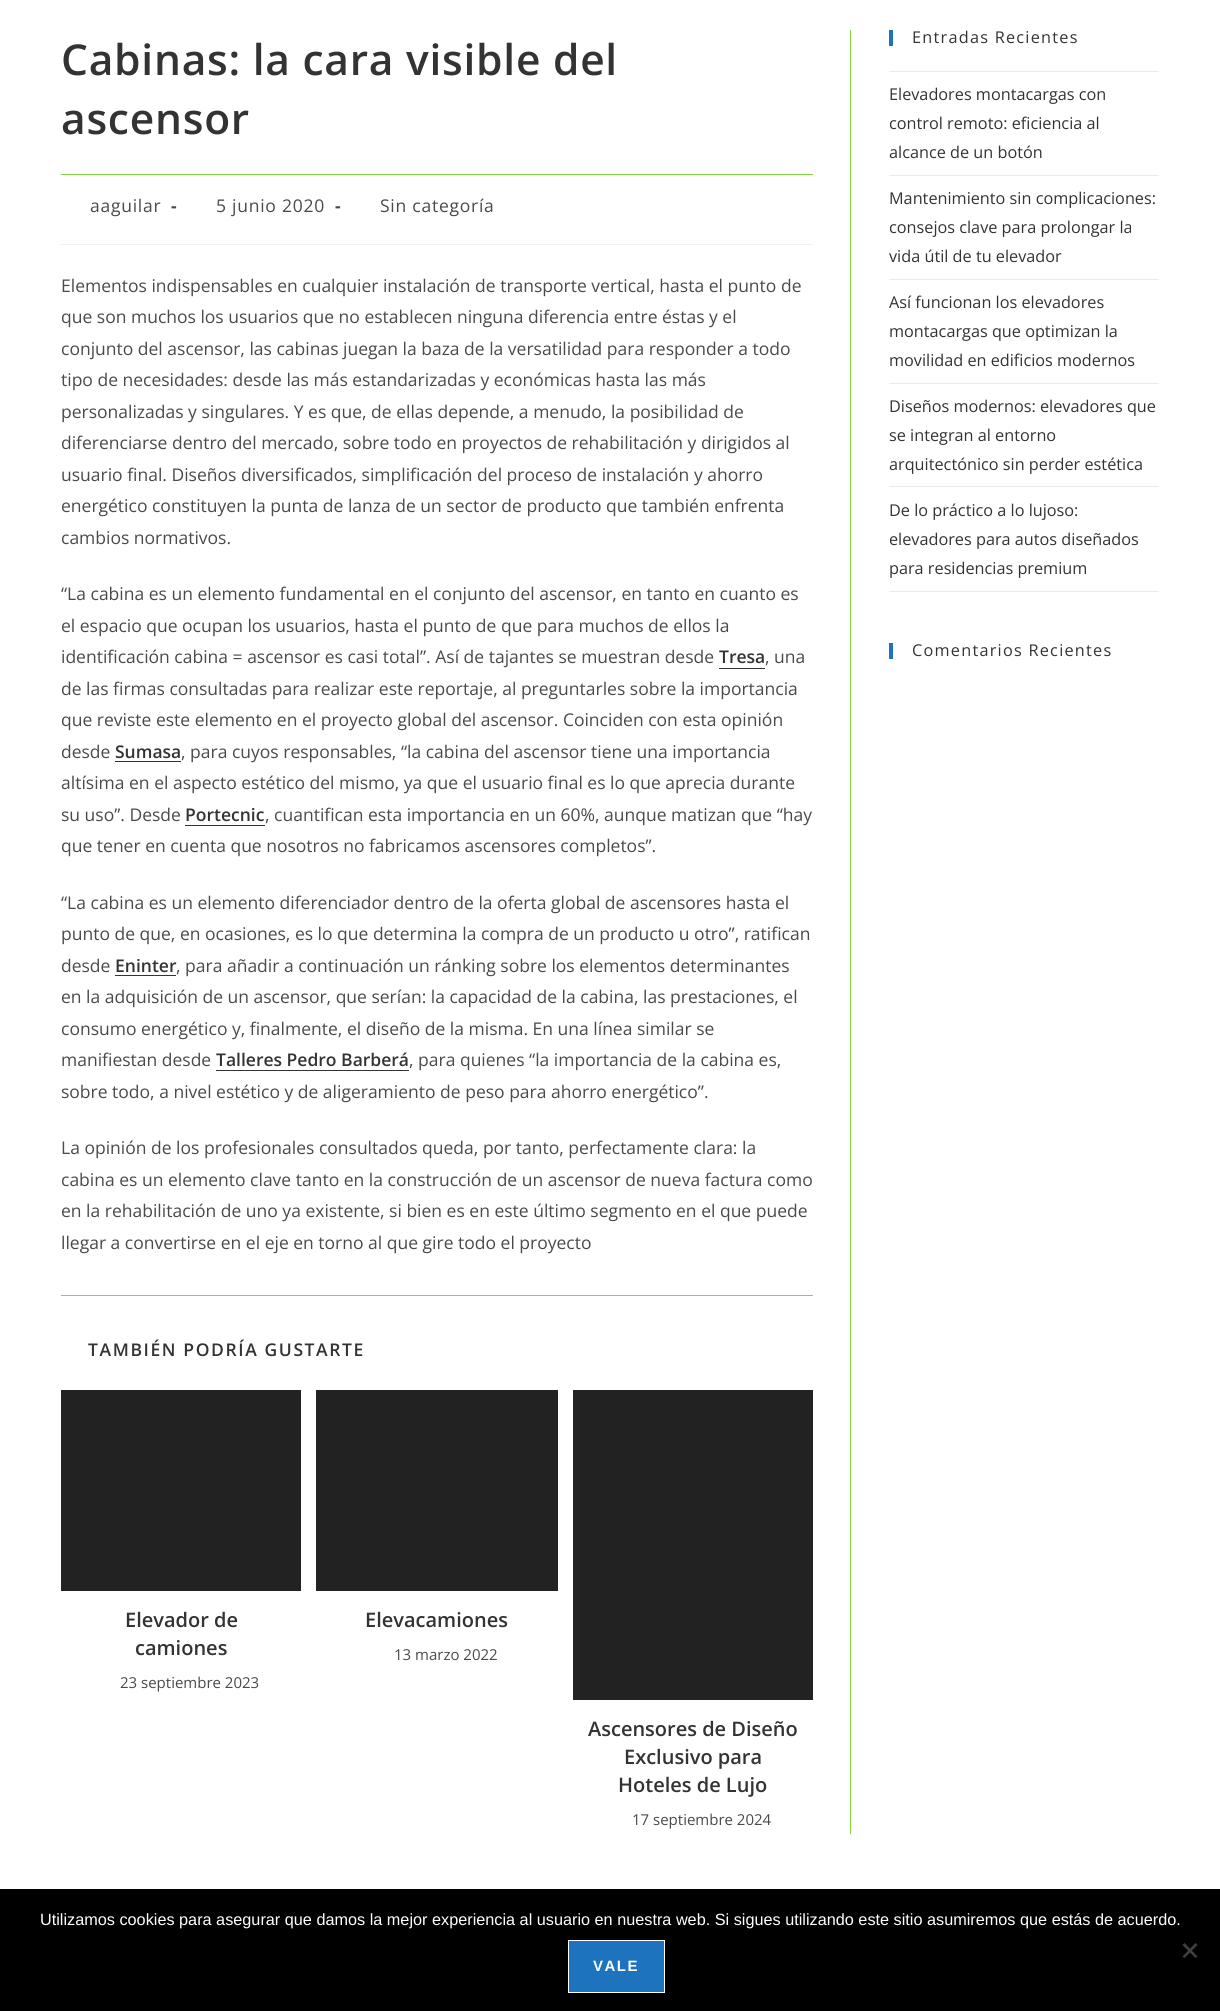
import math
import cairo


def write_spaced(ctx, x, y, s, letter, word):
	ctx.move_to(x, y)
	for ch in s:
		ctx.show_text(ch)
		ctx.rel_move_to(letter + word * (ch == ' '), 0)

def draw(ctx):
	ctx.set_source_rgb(1, 1, 1)
	ctx.paint()
	ctx.set_source_rgb(0.506, 0.843, 0.259)
	ctx.rectangle(850, 30, 1, 1804)
	ctx.fill()
	ctx.rectangle(61, 174, 752, 1)
	ctx.fill()
	ctx.select_font_face('Open Sans SemiBold')
	ctx.set_font_size(42.5)
	ctx.set_source_rgb(0.2, 0.2, 0.2)
	write_spaced(ctx, 61, 75, 'Cabinas: la cara visible del', 0.75, 0)
	write_spaced(ctx, 61, 134, 'ascensor', 0.75, 0)
	ctx.set_source_rgb(0.945, 0.945, 0.945)
	ctx.rectangle(61, 244, 752, 1)
	ctx.fill()
	ctx.select_font_face('Open Sans')
	ctx.set_font_size(17.5)
	ctx.set_source_rgb(0.29, 0.29, 0.29)
	write_spaced(ctx, 90, 212, 'aaguilar', 0.75, 0)
	ctx.select_font_face('Open Sans', cairo.FONT_SLANT_NORMAL, cairo.FONT_WEIGHT_BOLD)
	write_spaced(ctx, 171, 212, '-', 0.75, 0)
	ctx.select_font_face('Open Sans')
	write_spaced(ctx, 216, 212, '5 junio 2020', 0.75, 0)
	ctx.select_font_face('Open Sans', cairo.FONT_SLANT_NORMAL, cairo.FONT_WEIGHT_BOLD)
	write_spaced(ctx, 335, 212, '-', 0.75, 0)
	ctx.select_font_face('Open Sans')
	write_spaced(ctx, 380, 212, 'Sin categoría', 0.75, 0)
	for x, y, s in [
		(61, 292, 'Elementos indispensables en cualquier instalación de transporte vertical, hasta el punto de'),
		(61, 323, 'que son muchos los usuarios que no establecen ninguna diferencia entre éstas y el'),
		(61, 355, 'conjunto del ascensor, las cabinas juegan la baza de la versatilidad para responder a todo'),
		(61, 386, 'tipo de necesidades: desde las más estandarizadas y económicas hasta las más'),
		(61, 418, 'personalizadas y singulares. Y es que, de ellas depende, a menudo, la posibilidad de'),
		(61, 449, 'diferenciarse dentro del mercado, sobre todo en proyectos de rehabilitación y dirigidos al'),
		(61, 481, 'usuario final. Diseños diversificados, simplificación del proceso de instalación y ahorro'),
		(61, 512, 'energético constituyen la punta de lanza de un sector de producto que también enfrenta'),
		(61, 544, 'cambios normativos.'),
		(61, 600, '“La cabina es un elemento fundamental en el conjunto del ascensor, en tanto en cuanto es'),
		(61, 632, 'el espacio que ocupan los usuarios, hasta el punto de que para muchos de ellos la'),
		(61, 663, 'identificación cabina = ascensor es casi total”. Así de tajantes se muestran desde'),
	]:
		ctx.move_to(x, y)
		ctx.show_text(s)
	ctx.select_font_face('Open Sans SemiBold')
	ctx.set_source_rgb(0.2, 0.2, 0.2)
	ctx.move_to(719, 663)
	ctx.show_text('Tresa')
	ctx.rectangle(719, 668, 46, 1)
	ctx.fill()
	ctx.select_font_face('Open Sans')
	ctx.set_source_rgb(0.29, 0.29, 0.29)
	for x, y, s in [
		(765, 663, ', una'),
		(61, 695, 'de las firmas consultadas para realizar este reportaje, al preguntarles sobre la importancia'),
		(61, 726, 'que reviste este elemento en el proyecto global del ascensor. Coinciden con esta opinión'),
		(61, 758, 'desde'),
	]:
		ctx.move_to(x, y)
		ctx.show_text(s)
	ctx.select_font_face('Open Sans SemiBold')
	ctx.set_source_rgb(0.2, 0.2, 0.2)
	ctx.move_to(115, 758)
	ctx.show_text('Sumasa')
	ctx.rectangle(115, 761, 66, 1)
	ctx.fill()
	ctx.select_font_face('Open Sans')
	ctx.set_source_rgb(0.29, 0.29, 0.29)
	for x, y, s in [
		(181, 758, ', para cuyos responsables, “la cabina del ascensor tiene una importancia'),
		(61, 789, 'altísima en el aspecto estético del mismo, ya que el usuario final es lo que aprecia durante'),
		(61, 821, 'su uso”. Desde'),
	]:
		ctx.move_to(x, y)
		ctx.show_text(s)
	ctx.select_font_face('Open Sans SemiBold')
	ctx.set_source_rgb(0.2, 0.2, 0.2)
	ctx.move_to(185, 821)
	ctx.show_text('Portecnic')
	ctx.rectangle(185, 825, 80, 1)
	ctx.fill()
	ctx.select_font_face('Open Sans')
	ctx.set_source_rgb(0.29, 0.29, 0.29)
	for x, y, s in [
		(265, 821, ', cuantifican esta importancia en un 60%, aunque matizan que “hay'),
		(61, 852, 'que tener en cuenta que nosotros no fabricamos ascensores completos”.'),
		(61, 909, '“La cabina es un elemento diferenciador dentro de la oferta global de ascensores hasta el'),
		(61, 940, 'punto de que, en ocasiones, es lo que determina la compra de un producto u otro”, ratifican'),
		(61, 972, 'desde'),
	]:
		ctx.move_to(x, y)
		ctx.show_text(s)
	ctx.select_font_face('Open Sans SemiBold')
	ctx.set_source_rgb(0.2, 0.2, 0.2)
	ctx.move_to(115, 972)
	ctx.show_text('Eninter')
	ctx.rectangle(115, 975, 61, 1)
	ctx.fill()
	ctx.select_font_face('Open Sans')
	ctx.set_source_rgb(0.29, 0.29, 0.29)
	for x, y, s in [
		(176, 972, ', para añadir a continuación un ránking sobre los elementos determinantes'),
		(61, 1003, 'en la adquisición de un ascensor, que serían: la capacidad de la cabina, las prestaciones, el'),
		(61, 1035, 'consumo energético y, finalmente, el diseño de la misma. En una línea similar se'),
		(61, 1066, 'manifiestan desde'),
	]:
		ctx.move_to(x, y)
		ctx.show_text(s)
	ctx.select_font_face('Open Sans SemiBold')
	ctx.set_source_rgb(0.2, 0.2, 0.2)
	ctx.move_to(216, 1066)
	ctx.show_text('Talleres Pedro Barberá')
	ctx.rectangle(216, 1070, 193, 1)
	ctx.fill()
	ctx.select_font_face('Open Sans')
	ctx.set_source_rgb(0.29, 0.29, 0.29)
	for x, y, s in [
		(409, 1066, ', para quienes “la importancia de la cabina es,'),
		(61, 1098, 'sobre todo, a nivel estético y de aligeramiento de peso para ahorro energético”.'),
		(61, 1154, 'La opinión de los profesionales consultados queda, por tanto, perfectamente clara: la'),
		(61, 1186, 'cabina es un elemento clave tanto en la construcción de un ascensor de nueva factura como'),
		(61, 1217, 'en la rehabilitación de uno ya existente, si bien es en este último segmento en el que puede'),
		(61, 1249, 'llegar a convertirse en el eje en torno al que gire todo el proyecto'),
	]:
		ctx.move_to(x, y)
		ctx.show_text(s)
	ctx.set_source_rgb(0.506, 0.843, 0.259)
	ctx.rectangle(61, 1295, 752, 1)
	ctx.fill()
	ctx.select_font_face('Open Sans SemiBold')
	ctx.set_source_rgb(0.2, 0.2, 0.2)
	write_spaced(ctx, 88, 1356, 'TAMBIÉN PODRÍA GUSTARTE', 1.6, 0)
	ctx.set_source_rgb(0.133, 0.133, 0.133)
	ctx.rectangle(61, 1390, 240, 201)
	ctx.fill()
	ctx.set_font_size(20)
	ctx.set_source_rgb(0.2, 0.2, 0.2)
	ctx.move_to(125, 1627)
	ctx.show_text('Elevador de')
	ctx.move_to(135, 1655)
	ctx.show_text('camiones')
	ctx.select_font_face('Open Sans')
	ctx.set_font_size(15)
	ctx.set_source_rgb(0.29, 0.29, 0.29)
	ctx.move_to(120, 1688)
	ctx.show_text('23 septiembre 2023')
	ctx.set_source_rgb(0.133, 0.133, 0.133)
	ctx.rectangle(316, 1390, 242, 201)
	ctx.fill()
	ctx.select_font_face('Open Sans SemiBold')
	ctx.set_font_size(20)
	ctx.set_source_rgb(0.2, 0.2, 0.2)
	ctx.move_to(365, 1627)
	ctx.show_text('Elevacamiones')
	ctx.select_font_face('Open Sans')
	ctx.set_font_size(15)
	ctx.set_source_rgb(0.29, 0.29, 0.29)
	ctx.move_to(394, 1660)
	ctx.show_text('13 marzo 2022')
	ctx.set_source_rgb(0.133, 0.133, 0.133)
	ctx.rectangle(573, 1390, 240, 310)
	ctx.fill()
	ctx.select_font_face('Open Sans SemiBold')
	ctx.set_font_size(20)
	ctx.set_source_rgb(0.2, 0.2, 0.2)
	for x, y, s in [
		(588, 1736, 'Ascensores de Diseño'),
		(624, 1764, 'Exclusivo para'),
		(618, 1792, 'Hoteles de Lujo'),
	]:
		ctx.move_to(x, y)
		ctx.show_text(s)
	ctx.select_font_face('Open Sans')
	ctx.set_font_size(15)
	ctx.set_source_rgb(0.29, 0.29, 0.29)
	ctx.move_to(632, 1825)
	ctx.show_text('17 septiembre 2024')
	ctx.set_source_rgb(0.118, 0.451, 0.745)
	ctx.rectangle(889, 30, 4, 16)
	ctx.fill()
	ctx.set_font_size(16.25)
	ctx.set_source_rgb(0.2, 0.2, 0.2)
	write_spaced(ctx, 912, 43, 'Entradas Recientes', 1.25, 0)
	ctx.set_source_rgb(0.914, 0.914, 0.914)
	ctx.rectangle(889, 71, 270, 1)
	ctx.fill()
	ctx.rectangle(889, 175, 270, 1)
	ctx.fill()
	ctx.set_source_rgb(0.2, 0.2, 0.2)
	for x, y, s in [
		(889, 100, 'Elevadores montacargas con'),
		(889, 129, 'control remoto: eficiencia al'),
		(889, 158, 'alcance de un botón'),
	]:
		ctx.move_to(x, y)
		ctx.show_text(s)
	ctx.set_source_rgb(0.914, 0.914, 0.914)
	ctx.rectangle(889, 279, 270, 1)
	ctx.fill()
	ctx.set_source_rgb(0.2, 0.2, 0.2)
	for x, y, s in [
		(889, 204, 'Mantenimiento sin complicaciones:'),
		(889, 233, 'consejos clave para prolongar la'),
		(889, 262, 'vida útil de tu elevador'),
	]:
		ctx.move_to(x, y)
		ctx.show_text(s)
	ctx.set_source_rgb(0.914, 0.914, 0.914)
	ctx.rectangle(889, 383, 270, 1)
	ctx.fill()
	ctx.set_source_rgb(0.2, 0.2, 0.2)
	for x, y, s in [
		(889, 308, 'Así funcionan los elevadores'),
		(889, 337, 'montacargas que optimizan la'),
		(889, 366, 'movilidad en edificios modernos'),
	]:
		ctx.move_to(x, y)
		ctx.show_text(s)
	ctx.set_source_rgb(0.914, 0.914, 0.914)
	ctx.rectangle(889, 486, 270, 1)
	ctx.fill()
	ctx.set_source_rgb(0.2, 0.2, 0.2)
	for x, y, s in [
		(889, 412, 'Diseños modernos: elevadores que'),
		(889, 441, 'se integran al entorno'),
		(889, 470, 'arquitectónico sin perder estética'),
	]:
		ctx.move_to(x, y)
		ctx.show_text(s)
	ctx.set_source_rgb(0.914, 0.914, 0.914)
	ctx.rectangle(889, 591, 270, 1)
	ctx.fill()
	ctx.set_source_rgb(0.2, 0.2, 0.2)
	for x, y, s in [
		(889, 516, 'De lo práctico a lo lujoso:'),
		(889, 545, 'elevadores para autos diseñados'),
		(889, 574, 'para residencias premium'),
	]:
		ctx.move_to(x, y)
		ctx.show_text(s)
	ctx.set_source_rgb(0.118, 0.451, 0.745)
	ctx.rectangle(889, 643, 4, 16)
	ctx.fill()
	ctx.set_source_rgb(0.2, 0.2, 0.2)
	write_spaced(ctx, 912, 656, 'Comentarios Recientes', 1.25, 0)
	ctx.set_source_rgb(0, 0, 0)
	ctx.rectangle(0, 1889, 1220, 122)
	ctx.fill()
	ctx.select_font_face('Liberation Sans')
	ctx.set_source_rgb(1, 1, 1)
	ctx.move_to(40, 1925)
	ctx.show_text('Utilizamos cookies para asegurar que damos la mejor experiencia al usuario en nuestra web. Si sigues utilizando este sitio asumiremos que estás de acuerdo.')
	ctx.set_source_rgb(0.251, 0.251, 0.251)
	ctx.new_path()
	ctx.move_to(1195.5, 1943)
	ctx.line_to(1197.5, 1945)
	ctx.line_to(1184.5, 1958)
	ctx.line_to(1182.5, 1956.5)
	ctx.close_path()
	ctx.fill()
	ctx.new_path()
	ctx.move_to(1182.5, 1945)
	ctx.line_to(1184.5, 1943)
	ctx.line_to(1197.5, 1956.5)
	ctx.line_to(1195.5, 1958)
	ctx.close_path()
	ctx.fill()
	ctx.set_source_rgb(0.118, 0.451, 0.745)
	ctx.rectangle(568.5, 1940.5, 96, 52)
	ctx.fill_preserve()
	ctx.set_source_rgb(1, 1, 1)
	ctx.set_line_width(1)
	ctx.stroke()
	ctx.select_font_face('Liberation Sans', cairo.FONT_SLANT_NORMAL, cairo.FONT_WEIGHT_BOLD)
	ctx.set_font_size(15)
	write_spaced(ctx, 593, 1971, 'VALE', 1.5, 0)


surface = cairo.ImageSurface(cairo.FORMAT_RGB24, 1220, 2011)
ctx = cairo.Context(surface)
options = cairo.FontOptions()
options.set_hint_metrics(cairo.HINT_METRICS_OFF)
options.set_hint_style(cairo.HINT_STYLE_NONE)
ctx.set_font_options(options)
ctx.set_miter_limit(4)
draw(ctx)
surface.write_to_png('image.png')
